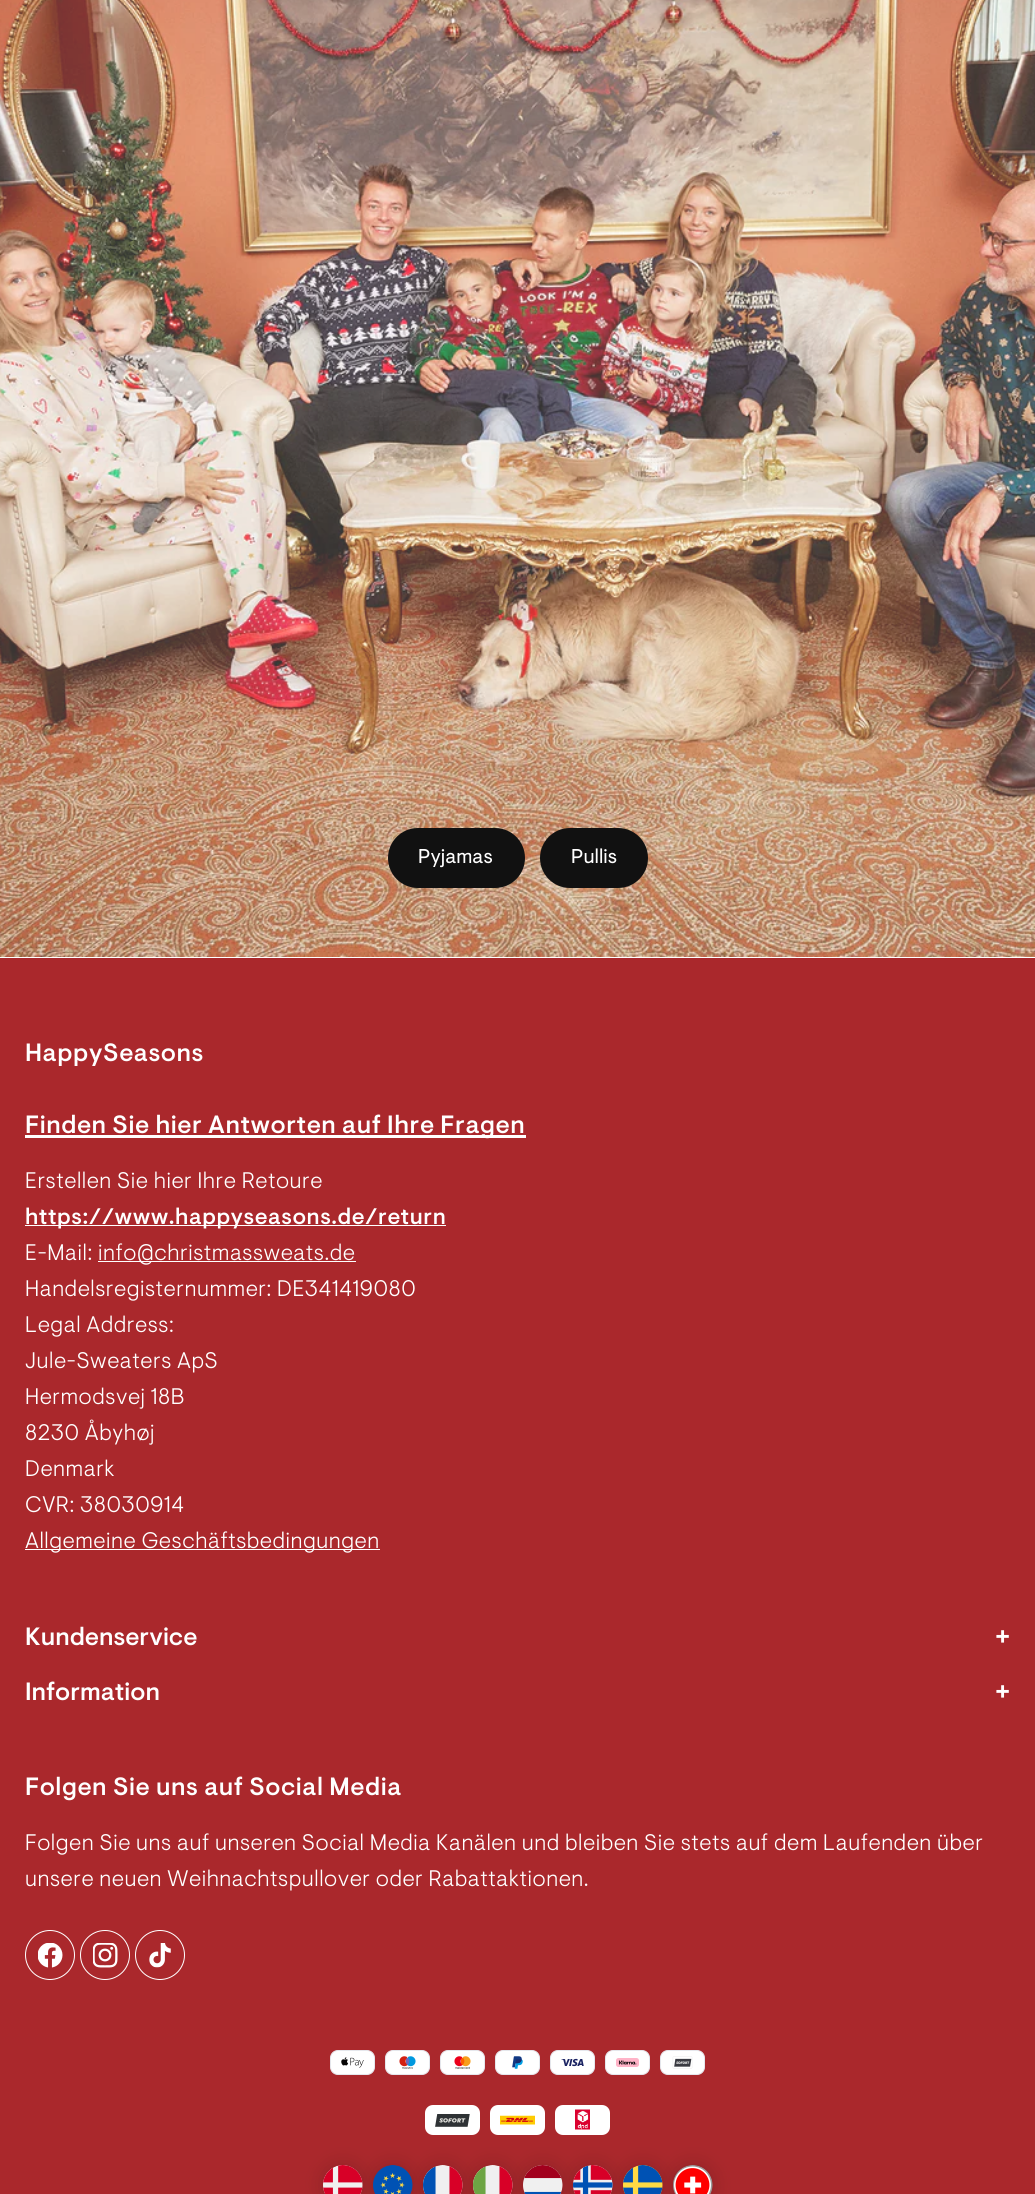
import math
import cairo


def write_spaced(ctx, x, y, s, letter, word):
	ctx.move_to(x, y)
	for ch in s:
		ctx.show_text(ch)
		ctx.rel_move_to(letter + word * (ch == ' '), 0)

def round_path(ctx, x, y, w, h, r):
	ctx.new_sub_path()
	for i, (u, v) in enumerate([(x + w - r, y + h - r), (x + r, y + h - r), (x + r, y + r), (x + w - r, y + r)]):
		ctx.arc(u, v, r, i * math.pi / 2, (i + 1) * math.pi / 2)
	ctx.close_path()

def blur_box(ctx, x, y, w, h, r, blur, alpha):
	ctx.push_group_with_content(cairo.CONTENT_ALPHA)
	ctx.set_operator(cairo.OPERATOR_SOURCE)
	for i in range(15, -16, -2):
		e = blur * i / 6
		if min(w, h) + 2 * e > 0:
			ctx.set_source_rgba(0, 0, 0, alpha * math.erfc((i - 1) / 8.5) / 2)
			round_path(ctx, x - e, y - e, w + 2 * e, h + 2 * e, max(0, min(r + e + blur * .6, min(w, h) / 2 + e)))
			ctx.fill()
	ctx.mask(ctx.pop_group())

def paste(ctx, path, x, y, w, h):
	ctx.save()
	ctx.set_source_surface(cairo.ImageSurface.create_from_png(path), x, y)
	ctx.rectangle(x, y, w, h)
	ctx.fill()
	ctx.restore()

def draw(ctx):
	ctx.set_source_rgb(0.667, 0.157, 0.173)
	ctx.paint()
	ctx.set_source_rgb(1, 1, 1)
	ctx.rectangle(0, 957, 1035, 1)
	ctx.fill()
	paste(ctx, 'media/1.png', 0, 0, 1035, 957)
	ctx.set_source_rgb(0.067, 0.067, 0.067)
	round_path(ctx, 388, 828, 137, 60, 30)
	ctx.fill()
	ctx.select_font_face('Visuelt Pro')
	ctx.set_font_size(20)
	ctx.set_source_rgb(1, 1, 1)
	ctx.move_to(418, 863)
	ctx.show_text('Pyjamas')
	ctx.set_source_rgb(0.067, 0.067, 0.067)
	round_path(ctx, 540, 828, 108, 60, 30)
	ctx.fill()
	ctx.set_source_rgb(1, 1, 1)
	ctx.move_to(571, 863)
	ctx.show_text('Pullis')
	ctx.select_font_face('Visuelt Pro Medium')
	ctx.set_font_size(25)
	write_spaced(ctx, 25, 1061, 'HappySeasons', 0.55, 0)
	ctx.rectangle(25, 1135, 501, 3)
	ctx.fill()
	write_spaced(ctx, 25, 1133, 'Finden Sie hier Antworten auf Ihre Fragen', 0.55, 0)
	ctx.select_font_face('Visuelt Pro Light')
	ctx.set_font_size(22.5)
	write_spaced(ctx, 25, 1188, 'Erstellen Sie hier Ihre Retoure', 0.55, 0)
	ctx.rectangle(25, 1225, 421, 1)
	ctx.fill()
	ctx.select_font_face('Visuelt Pro Medium')
	write_spaced(ctx, 25, 1224, 'https://www.happyseasons.de/return', 0.55, 0)
	ctx.select_font_face('Visuelt Pro Light')
	write_spaced(ctx, 25, 1260, 'E-Mail:', 0.55, 0)
	ctx.rectangle(98, 1261, 258, 1)
	ctx.fill()
	for x, y, s in [
		(98, 1260, 'info@christmassweats.de'),
		(25, 1296, 'Handelsregisternummer: DE341419080'),
		(25, 1332, 'Legal Address:'),
		(25, 1368, 'Jule-Sweaters ApS'),
		(25, 1404, 'Hermodsvej 18B'),
		(25, 1440, '8230 Åbyhøj'),
		(25, 1476, 'Denmark'),
		(25, 1512, 'CVR: 38030914'),
	]:
		write_spaced(ctx, x, y, s, 0.55, 0)
	ctx.rectangle(25, 1549, 355, 1)
	ctx.fill()
	write_spaced(ctx, 25, 1548, 'Allgemeine Geschäftsbedingungen', 0.55, 0)
	ctx.select_font_face('Visuelt Pro Medium')
	ctx.set_font_size(25)
	ctx.move_to(25, 1645)
	ctx.show_text('Kundenservice')
	ctx.set_font_size(30)
	ctx.move_to(995, 1646)
	ctx.show_text('+')
	ctx.set_font_size(25)
	ctx.move_to(25, 1700)
	ctx.show_text('Information')
	ctx.set_font_size(30)
	ctx.move_to(995, 1701)
	ctx.show_text('+')
	ctx.set_font_size(25)
	write_spaced(ctx, 25, 1795, 'Folgen Sie uns auf Social Media', 0.55, 0)
	ctx.select_font_face('Visuelt Pro Light')
	ctx.set_font_size(22.5)
	write_spaced(ctx, 25, 1850, 'Folgen Sie uns auf unseren Social Media Kanälen und bleiben Sie stets auf dem Laufenden über', 0.55, 0)
	write_spaced(ctx, 25, 1886, 'unsere neuen Weihnachtspullover oder Rabattaktionen.', 0.55, 0)
	ctx.new_path()
	ctx.arc(50, 1955, 24.5, 0, 2 * math.pi)
	ctx.set_line_width(1)
	ctx.stroke()
	paste(ctx, 'media/2.png', 38, 1943, 25, 25)
	ctx.arc(105, 1955, 24.5, 0, 2 * math.pi)
	ctx.stroke()
	paste(ctx, 'media/3.png', 93, 1943, 25, 25)
	ctx.arc(160, 1955, 24.5, 0, 2 * math.pi)
	ctx.stroke()
	paste(ctx, 'media/4.png', 149, 1943, 22, 25)
	round_path(ctx, 330.5, 2050.5, 44, 24, 7.5)
	ctx.fill_preserve()
	ctx.set_source_rgb(0.898, 0.906, 0.922)
	ctx.stroke()
	paste(ctx, 'media/5.png', 341, 2057, 23, 11)
	ctx.set_source_rgb(1, 1, 1)
	round_path(ctx, 385.5, 2050.5, 44, 24, 7.5)
	ctx.fill_preserve()
	ctx.set_source_rgb(0.898, 0.906, 0.922)
	ctx.stroke()
	paste(ctx, 'media/6.png', 399, 2056, 17, 13)
	ctx.set_source_rgb(1, 1, 1)
	round_path(ctx, 440.5, 2050.5, 44, 24, 7.5)
	ctx.fill_preserve()
	ctx.set_source_rgb(0.898, 0.906, 0.922)
	ctx.stroke()
	paste(ctx, 'media/7.png', 454, 2056, 17, 13)
	ctx.set_source_rgb(1, 1, 1)
	round_path(ctx, 495.5, 2050.5, 44, 24, 7.5)
	ctx.fill_preserve()
	ctx.set_source_rgb(0.898, 0.906, 0.922)
	ctx.stroke()
	paste(ctx, 'media/8.png', 512, 2056, 11, 13)
	ctx.set_source_rgb(1, 1, 1)
	round_path(ctx, 550.5, 2050.5, 44, 24, 7.5)
	ctx.fill_preserve()
	ctx.set_source_rgb(0.898, 0.906, 0.922)
	ctx.stroke()
	paste(ctx, 'media/9.png', 561, 2058, 23, 9)
	ctx.set_source_rgb(1, 1, 1)
	round_path(ctx, 605.5, 2050.5, 44, 24, 7.5)
	ctx.fill_preserve()
	ctx.set_source_rgb(0.898, 0.906, 0.922)
	ctx.stroke()
	paste(ctx, 'media/10.png', 616, 2058, 23, 9)
	ctx.set_source_rgb(1, 1, 1)
	round_path(ctx, 660.5, 2050.5, 44, 24, 7.5)
	ctx.fill_preserve()
	ctx.set_source_rgb(0.898, 0.906, 0.922)
	ctx.stroke()
	paste(ctx, 'media/11.png', 672, 2056, 21, 13)
	ctx.set_source_rgb(1, 1, 1)
	round_path(ctx, 425, 2105, 55, 30, 8)
	ctx.fill()
	paste(ctx, 'media/12.png', 435, 2114, 35, 13)
	round_path(ctx, 490, 2105, 55, 30, 8)
	ctx.fill()
	paste(ctx, 'media/13.png', 500, 2115, 35, 10)
	round_path(ctx, 555, 2105, 55, 30, 8)
	ctx.fill()
	paste(ctx, 'media/14.png', 575, 2109, 15, 21)
	ctx.set_source_rgb(0, 0, 0)
	blur_box(ctx, 323, 2165, 40, 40, 20, 10, 0.15)
	blur_box(ctx, 373, 2165, 40, 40, 20, 10, 0.15)
	paste(ctx, 'media/15.png', 323, 2165, 40, 29)
	blur_box(ctx, 423, 2165, 40, 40, 20, 10, 0.15)
	paste(ctx, 'media/16.png', 373, 2165, 40, 29)
	blur_box(ctx, 473, 2165, 40, 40, 20, 10, 0.15)
	paste(ctx, 'media/17.png', 423, 2165, 40, 29)
	blur_box(ctx, 523, 2165, 40, 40, 20, 10, 0.15)
	paste(ctx, 'media/18.png', 473, 2165, 40, 29)
	blur_box(ctx, 573, 2165, 40, 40, 20, 10, 0.15)
	paste(ctx, 'media/19.png', 523, 2165, 40, 29)
	blur_box(ctx, 623, 2165, 40, 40, 20, 10, 0.15)
	paste(ctx, 'media/20.png', 573, 2165, 40, 29)
	blur_box(ctx, 673, 2165, 40, 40, 20, 10, 0.15)
	paste(ctx, 'media/21.png', 623, 2165, 40, 29)
	paste(ctx, 'media/22.png', 673, 2165, 40, 29)


surface = cairo.ImageSurface(cairo.FORMAT_RGB24, 1035, 2194)
ctx = cairo.Context(surface)
options = cairo.FontOptions()
options.set_hint_metrics(cairo.HINT_METRICS_OFF)
options.set_hint_style(cairo.HINT_STYLE_NONE)
ctx.set_font_options(options)
ctx.set_miter_limit(4)
draw(ctx)
surface.write_to_png('image.png')
